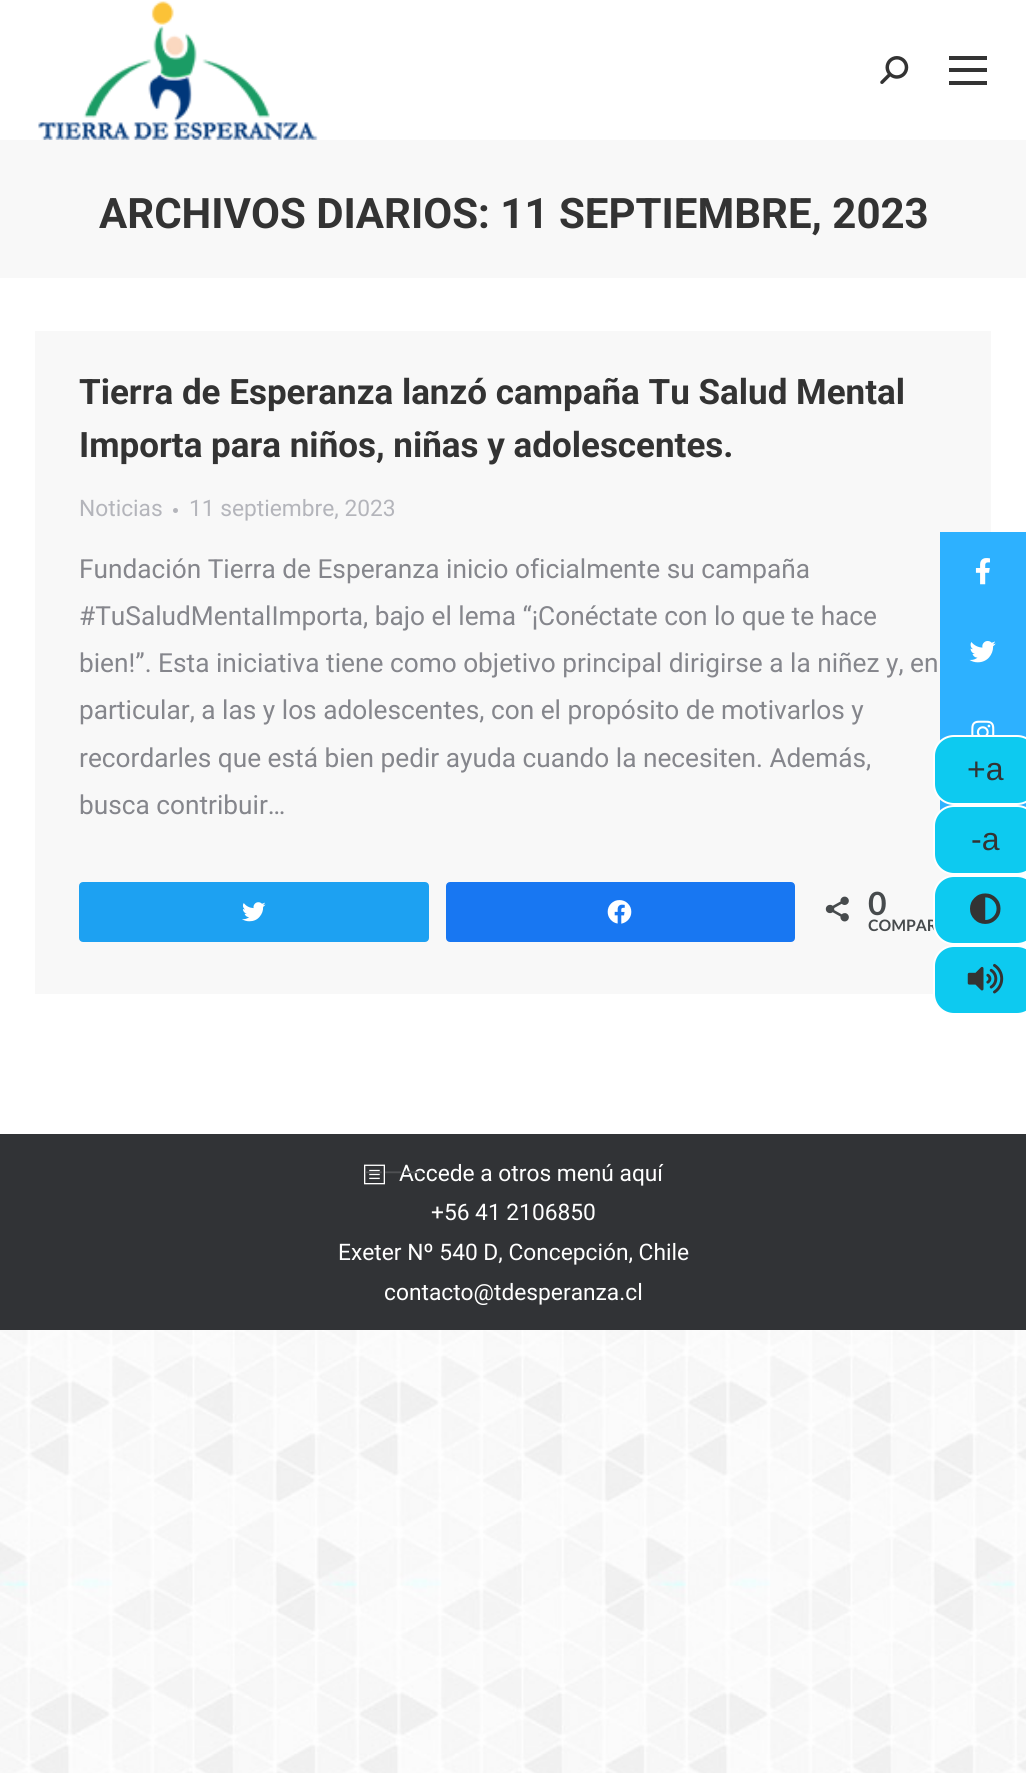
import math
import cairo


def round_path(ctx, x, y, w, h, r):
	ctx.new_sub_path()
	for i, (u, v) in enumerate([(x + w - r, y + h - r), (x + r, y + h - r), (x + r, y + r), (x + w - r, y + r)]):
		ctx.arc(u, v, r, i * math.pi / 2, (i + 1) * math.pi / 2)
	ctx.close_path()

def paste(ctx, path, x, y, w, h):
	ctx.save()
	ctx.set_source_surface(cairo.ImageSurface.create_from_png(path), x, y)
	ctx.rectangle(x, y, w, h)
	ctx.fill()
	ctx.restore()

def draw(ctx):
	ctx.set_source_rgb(1, 1, 1)
	ctx.paint()
	paste(ctx, 'media/1.png', 0, 1330, 1026, 443)
	paste(ctx, 'media/2.png', 38, 1, 280, 139)
	paste(ctx, 'media/3.png', 880, 56, 29, 28)
	ctx.set_source_rgb(0.2, 0.2, 0.2)
	ctx.rectangle(949, 56, 38, 4)
	ctx.rectangle(949, 68, 38, 4)
	ctx.rectangle(949, 81, 38, 4)
	ctx.fill()
	ctx.set_source_rgb(0.969, 0.969, 0.969)
	ctx.rectangle(0, 140, 1026, 138)
	ctx.fill()
	ctx.select_font_face('Roboto', cairo.FONT_SLANT_NORMAL, cairo.FONT_WEIGHT_BOLD)
	ctx.set_font_size(42)
	ctx.set_source_rgb(0.2, 0.2, 0.2)
	ctx.move_to(99, 228)
	ctx.show_text('ARCHIVOS DIARIOS: 11 SEPTIEMBRE, 2023')
	ctx.set_source_rgb(0.969, 0.969, 0.969)
	ctx.rectangle(35, 331, 956, 663)
	ctx.fill()
	ctx.set_font_size(35)
	ctx.set_source_rgb(0.2, 0.2, 0.2)
	ctx.move_to(79, 404)
	ctx.show_text('Tierra de Esperanza lanzó campaña Tu Salud Mental')
	ctx.move_to(79, 457)
	ctx.show_text('Importa para niños, niñas y adolescentes.')
	ctx.select_font_face('Roboto')
	ctx.set_font_size(22.75)
	ctx.set_source_rgb(0.706, 0.71, 0.733)
	ctx.move_to(79, 516)
	ctx.show_text('Noticias')
	ctx.new_path()
	ctx.arc(175.5, 510.5, 2.5, 0, 2 * math.pi)
	ctx.fill()
	ctx.move_to(189, 516)
	ctx.show_text('11 septiembre, 2023')
	ctx.set_font_size(26.25)
	ctx.set_source_rgb(0.522, 0.525, 0.549)
	for x, y, s in [
		(79, 578, 'Fundación Tierra de Esperanza inicio oficialmente su campaña'),
		(79, 625, '#TuSaludMentalImporta, bajo el lema “¡Conéctate con lo que te hace'),
		(79, 672, 'bien!”. Esta iniciativa tiene como objetivo principal dirigirse a la niñez y, en'),
		(79, 719, 'particular, a las y los adolescentes, con el propósito de motivarlos y'),
		(79, 767, 'recordarles que está bien pedir ayuda cuando la necesiten. Además,'),
		(79, 814, 'busca contribuir…'),
	]:
		ctx.move_to(x, y)
		ctx.show_text(s)
	ctx.set_source_rgb(0.114, 0.631, 0.949)
	round_path(ctx, 80, 883, 348, 58, 3)
	ctx.fill_preserve()
	ctx.stroke()
	paste(ctx, 'media/4.png', 242, 902, 24, 20)
	ctx.set_source_rgb(0.094, 0.467, 0.949)
	round_path(ctx, 447, 883, 347, 58, 3)
	ctx.fill_preserve()
	ctx.stroke()
	paste(ctx, 'media/5.png', 607, 900, 25, 24)
	paste(ctx, 'media/6.png', 825, 896, 24, 26)
	ctx.select_font_face('Lato', cairo.FONT_SLANT_NORMAL, cairo.FONT_WEIGHT_BOLD)
	ctx.set_font_size(32)
	ctx.set_source_rgb(0.278, 0.294, 0.302)
	ctx.move_to(868, 915)
	ctx.show_text('0')
	ctx.set_font_size(15.75)
	ctx.move_to(868, 931)
	ctx.show_text('COMPAR')
	ctx.set_source_rgb(0.192, 0.2, 0.212)
	ctx.rectangle(0, 1134, 1026, 196)
	ctx.fill()
	paste(ctx, 'media/7.png', 364, 1164, 21, 21)
	ctx.select_font_face('Roboto')
	ctx.set_font_size(22.75)
	ctx.set_source_rgb(1, 1, 1)
	ctx.move_to(399, 1181)
	ctx.show_text('Accede a otros menú aquí')
	ctx.set_font_size(24.5)
	ctx.set_source_rgb(0.31, 0.314, 0.325)
	ctx.move_to(364, 1181)
	ctx.show_text('———')
	ctx.set_font_size(22.75)
	ctx.set_source_rgb(1, 1, 1)
	for x, y, s in [
		(431, 1220, '+56 41 2106850'),
		(338, 1260, 'Exeter Nº 540 D, Concepción, Chile'),
		(384, 1300, 'contacto@tdesperanza.cl'),
	]:
		ctx.move_to(x, y)
		ctx.show_text(s)
	ctx.set_source_rgb(0.176, 0.694, 1)
	ctx.rectangle(940, 532, 86, 209)
	ctx.fill()
	paste(ctx, 'media/8.png', 975, 558, 15, 27)
	paste(ctx, 'media/9.png', 969, 641, 27, 22)
	paste(ctx, 'media/10.png', 971, 720, 24, 15)
	ctx.rectangle(940, 799, 86, 12)
	ctx.fill()
	ctx.set_source_rgb(0.051, 0.792, 0.941)
	round_path(ctx, 934, 736, 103, 68, 20)
	ctx.fill_preserve()
	ctx.set_source_rgb(1, 1, 1)
	ctx.stroke()
	ctx.select_font_face('Liberation Sans')
	ctx.set_font_size(32)
	ctx.set_source_rgb(0.2, 0.2, 0.2)
	ctx.move_to(967, 780)
	ctx.show_text('+a')
	ctx.set_source_rgb(0.051, 0.792, 0.941)
	round_path(ctx, 934, 806, 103, 68, 20)
	ctx.fill_preserve()
	ctx.set_source_rgb(1, 1, 1)
	ctx.stroke()
	ctx.set_source_rgb(0.2, 0.2, 0.2)
	ctx.move_to(971, 850)
	ctx.show_text('-a')
	ctx.set_source_rgb(0.051, 0.792, 0.941)
	round_path(ctx, 934, 876, 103, 68, 20)
	ctx.fill_preserve()
	ctx.set_source_rgb(1, 1, 1)
	ctx.stroke()
	paste(ctx, 'media/11.png', 970, 893, 31, 31)
	ctx.set_source_rgb(0.051, 0.792, 0.941)
	round_path(ctx, 934, 946, 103, 68, 20)
	ctx.fill_preserve()
	ctx.set_source_rgb(1, 1, 1)
	ctx.stroke()
	paste(ctx, 'media/12.png', 967, 963, 37, 31)


surface = cairo.ImageSurface(cairo.FORMAT_RGB24, 1026, 1773)
ctx = cairo.Context(surface)
options = cairo.FontOptions()
options.set_hint_metrics(cairo.HINT_METRICS_OFF)
options.set_hint_style(cairo.HINT_STYLE_NONE)
ctx.set_font_options(options)
ctx.set_miter_limit(4)
draw(ctx)
surface.write_to_png('image.png')
